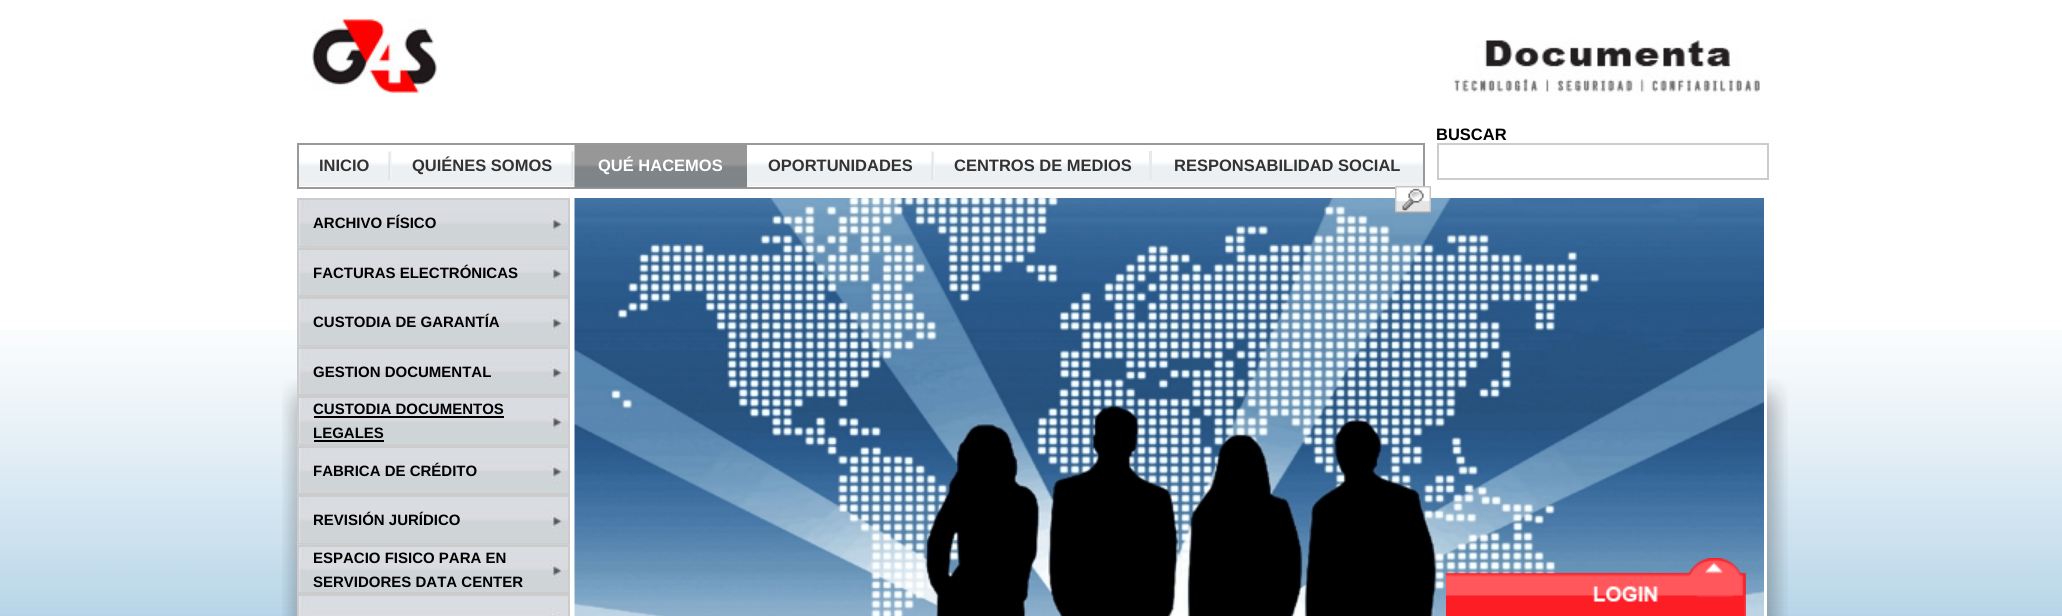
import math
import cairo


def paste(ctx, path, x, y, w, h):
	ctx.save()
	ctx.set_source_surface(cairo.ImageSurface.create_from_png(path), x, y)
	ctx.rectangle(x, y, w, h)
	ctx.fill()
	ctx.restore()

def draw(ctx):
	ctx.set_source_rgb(1, 1, 1)
	ctx.paint()
	paste(ctx, 'media/1.png', 0, 330, 2062, 286)
	paste(ctx, 'media/2.png', 282, 379, 1506, 237)
	paste(ctx, 'media/3.png', 312, 18, 125, 75)
	paste(ctx, 'media/4.png', 1452, 39, 308, 57)
	ctx.select_font_face('Liberation Sans', cairo.FONT_SLANT_NORMAL, cairo.FONT_WEIGHT_BOLD)
	ctx.set_font_size(16.5)
	ctx.set_source_rgb(0, 0, 0)
	ctx.move_to(1436, 140)
	ctx.show_text('BUSCAR')
	ctx.rectangle(1438, 144, 330, 35)
	ctx.set_source_rgb(0.8, 0.8, 0.8)
	ctx.stroke()
	paste(ctx, 'media/6.png', 299, 162, 1124, 24)
	ctx.rectangle(298, 144, 1126, 44)
	ctx.set_source_rgb(0.6, 0.6, 0.6)
	ctx.stroke()
	ctx.set_source_rgb(1, 1, 1)
	ctx.rectangle(570, 330, 1197, 286)
	ctx.fill()
	paste(ctx, 'media/12.png', 574, 198, 1190, 418)
	paste(ctx, 'media/5.png', 1395, 186, 36, 27)
	paste(ctx, 'media/7.png', 388, 151, 4, 29)
	ctx.set_source_rgb(0.2, 0.2, 0.2)
	ctx.move_to(319, 171)
	ctx.show_text('INICIO')
	paste(ctx, 'media/7.png', 571, 151, 4, 29)
	ctx.move_to(412, 171)
	ctx.show_text('QUIÉNES SOMOS')
	paste(ctx, 'media/8.png', 574, 145, 173, 43)
	ctx.set_source_rgb(1, 1, 1)
	ctx.move_to(598, 171)
	ctx.show_text('QUÉ HACEMOS')
	paste(ctx, 'media/7.png', 931, 151, 4, 29)
	ctx.set_source_rgb(0.2, 0.2, 0.2)
	ctx.move_to(768, 171)
	ctx.show_text('OPORTUNIDADES')
	ctx.set_source_rgb(0.914, 0.914, 0.914)
	ctx.rectangle(1149, 151, 3, 29)
	ctx.fill()
	ctx.set_source_rgb(0.2, 0.2, 0.2)
	ctx.move_to(954, 171)
	ctx.show_text('CENTROS DE MEDIOS')
	ctx.move_to(1174, 171)
	ctx.show_text('RESPONSABILIDAD SOCIAL')
	paste(ctx, 'media/9.png', 299, 200, 269, 46)
	ctx.rectangle(298, 199, 271, 48)
	ctx.set_source_rgb(0.8, 0.8, 0.8)
	ctx.stroke()
	ctx.set_font_size(15)
	ctx.set_source_rgb(0, 0, 0)
	ctx.move_to(313, 228)
	ctx.show_text('ARCHIVO FÍSICO')
	paste(ctx, 'media/10.png', 297, 247, 273, 48)
	ctx.rectangle(298, 249, 271, 47)
	ctx.set_source_rgb(0.8, 0.8, 0.8)
	ctx.stroke()
	ctx.set_source_rgb(0, 0, 0)
	ctx.move_to(313, 278)
	ctx.show_text('FACTURAS ELECTRÓNICAS')
	paste(ctx, 'media/9.png', 299, 299, 269, 46)
	ctx.rectangle(298, 298, 271, 48)
	ctx.set_source_rgb(0.8, 0.8, 0.8)
	ctx.stroke()
	ctx.set_source_rgb(0, 0, 0)
	ctx.move_to(313, 327)
	ctx.show_text('CUSTODIA DE GARANTÍA')
	paste(ctx, 'media/10.png', 297, 346, 273, 48)
	ctx.rectangle(298, 348, 271, 47)
	ctx.set_source_rgb(0.8, 0.8, 0.8)
	ctx.stroke()
	ctx.set_source_rgb(0, 0, 0)
	ctx.move_to(313, 377)
	ctx.show_text('GESTION DOCUMENTAL')
	paste(ctx, 'media/9.png', 299, 398, 269, 46)
	ctx.rectangle(298, 397, 271, 48)
	ctx.set_source_rgb(0.8, 0.8, 0.8)
	ctx.stroke()
	ctx.set_source_rgb(0, 0, 0)
	ctx.move_to(313, 414)
	ctx.show_text('CUSTODIA DOCUMENTOS')
	ctx.rectangle(314, 416, 190, 2)
	ctx.fill()
	ctx.move_to(313, 438)
	ctx.show_text('LEGALES')
	ctx.rectangle(314, 440, 70, 2)
	ctx.fill()
	paste(ctx, 'media/10.png', 297, 445, 273, 48)
	ctx.rectangle(298, 447, 271, 47)
	ctx.set_source_rgb(0.8, 0.8, 0.8)
	ctx.stroke()
	ctx.set_source_rgb(0, 0, 0)
	ctx.move_to(313, 476)
	ctx.show_text('FABRICA DE CRÉDITO')
	paste(ctx, 'media/9.png', 299, 497, 269, 46)
	ctx.rectangle(298, 496, 271, 48)
	ctx.set_source_rgb(0.8, 0.8, 0.8)
	ctx.stroke()
	ctx.set_source_rgb(0, 0, 0)
	ctx.move_to(313, 525)
	ctx.show_text('REVISIÓN JURÍDICO')
	paste(ctx, 'media/10.png', 297, 544, 273, 48)
	ctx.rectangle(298, 546, 271, 47)
	ctx.set_source_rgb(0.8, 0.8, 0.8)
	ctx.stroke()
	ctx.set_source_rgb(0, 0, 0)
	ctx.move_to(313, 563)
	ctx.show_text('ESPACIO FISICO PARA EN')
	ctx.move_to(313, 587)
	ctx.show_text('SERVIDORES DATA CENTER')
	paste(ctx, 'media/11.png', 299, 596, 269, 20)
	ctx.rectangle(298, 595, 271, 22)
	ctx.set_source_rgb(0.8, 0.8, 0.8)
	ctx.stroke()
	paste(ctx, 'media/13.png', 1446, 558, 300, 58)


surface = cairo.ImageSurface(cairo.FORMAT_RGB24, 2062, 616)
ctx = cairo.Context(surface)
options = cairo.FontOptions()
options.set_hint_metrics(cairo.HINT_METRICS_OFF)
options.set_hint_style(cairo.HINT_STYLE_NONE)
ctx.set_font_options(options)
ctx.set_miter_limit(4)
draw(ctx)
surface.write_to_png('image.png')
